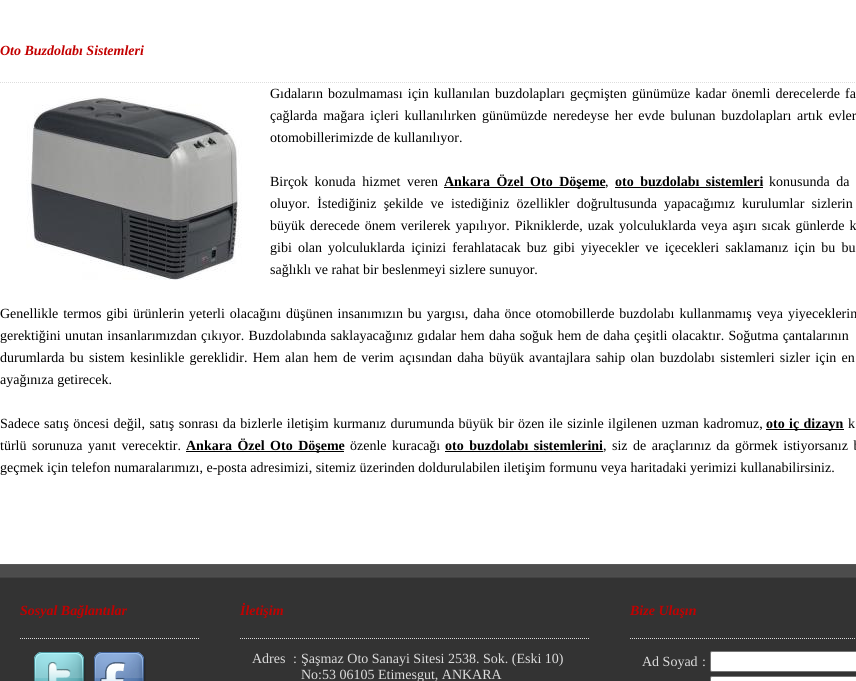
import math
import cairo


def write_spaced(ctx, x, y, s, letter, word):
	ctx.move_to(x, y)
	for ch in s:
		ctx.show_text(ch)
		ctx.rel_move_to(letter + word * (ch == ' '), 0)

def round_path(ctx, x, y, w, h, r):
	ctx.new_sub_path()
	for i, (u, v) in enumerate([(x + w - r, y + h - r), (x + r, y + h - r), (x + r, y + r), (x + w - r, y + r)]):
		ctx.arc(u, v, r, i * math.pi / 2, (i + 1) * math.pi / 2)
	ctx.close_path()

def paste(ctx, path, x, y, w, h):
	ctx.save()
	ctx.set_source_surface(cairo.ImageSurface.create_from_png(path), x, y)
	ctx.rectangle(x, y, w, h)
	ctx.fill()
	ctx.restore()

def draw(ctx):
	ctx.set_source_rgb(1, 1, 1)
	ctx.paint()
	ctx.new_path()
	ctx.move_to(0, 82.5)
	ctx.line_to(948, 82.5)
	ctx.set_source_rgb(0.867, 0.867, 0.867)
	ctx.set_line_width(1)
	ctx.set_dash([1, 1])
	ctx.stroke()
	ctx.select_font_face('Liberation Serif', cairo.FONT_SLANT_ITALIC, cairo.FONT_WEIGHT_BOLD)
	ctx.set_font_size(14)
	ctx.set_source_rgb(0.765, 0, 0)
	ctx.move_to(0, 55)
	ctx.show_text('Oto Buzdolabı Sistemleri')
	ctx.select_font_face('Liberation Serif')
	ctx.set_source_rgb(0, 0, 0)
	write_spaced(ctx, 270, 98, 'Gıdaların bozulmaması için kullanılan buzdolapları geçmişten günümüze kadar önemli derecelerde fa', 0, 1.6)
	paste(ctx, 'media/1.png', 26, 96, 216, 184)
	write_spaced(ctx, 270, 120, 'çağlarda mağara içleri kullanılırken günümüzde neredeyse her evde bulunan buzdolapları artık evler', 0, 2.25)
	ctx.move_to(270, 142)
	ctx.show_text('otomobillerimizde de kullanılıyor.')
	write_spaced(ctx, 270, 186, 'Birçok konuda hizmet veren', 0, 3)
	ctx.rectangle(444, 187, 161, 1)
	ctx.fill()
	ctx.select_font_face('Liberation Serif', cairo.FONT_SLANT_NORMAL, cairo.FONT_WEIGHT_BOLD)
	write_spaced(ctx, 444, 186, 'Ankara Özel Oto Döşeme', 0, 3)
	ctx.select_font_face('Liberation Serif')
	ctx.move_to(605, 186)
	ctx.show_text(',')
	ctx.rectangle(615, 187, 148, 1)
	ctx.fill()
	ctx.select_font_face('Liberation Serif', cairo.FONT_SLANT_NORMAL, cairo.FONT_WEIGHT_BOLD)
	write_spaced(ctx, 615, 186, 'oto buzdolabı sistemleri', 0, 3)
	ctx.select_font_face('Liberation Serif')
	write_spaced(ctx, 769, 186, 'konusunda da', 0, 3)
	write_spaced(ctx, 270, 208, 'oluyor. İstediğiniz şekilde ve istediğiniz özellikler doğrultusunda yapacağımız kurulumlar sizlerin', 0, 3.75)
	write_spaced(ctx, 270, 230, 'büyük derecede önem verilerek yapılıyor. Pikniklerde, uzak yolculuklarda veya aşırı sıcak günlerde k', 0, 1.5)
	write_spaced(ctx, 270, 252, 'gibi olan yolculuklarda içinizi ferahlatacak buz gibi yiyecekler ve içecekleri saklamanız için bu bu', 0, 2.6)
	ctx.move_to(270, 274)
	ctx.show_text('sağlıklı ve rahat bir beslenmeyi sizlere sunuyor.')
	write_spaced(ctx, 0, 318, 'Genellikle termos gibi ürünlerin yeterli olacağını düşünen insanımızın bu yargısı, daha önce otomobillerde buzdolabı kullanmamış veya yiyeceklerin', 0, 1.4)
	write_spaced(ctx, 0, 340, 'gerektiğini unutan insanlarımızdan çıkıyor. Buzdolabında saklayacağınız gıdalar hem daha soğuk hem de daha çeşitli olacaktır. Soğutma çantalarının', 0, 0.8)
	write_spaced(ctx, 0, 362, 'durumlarda bu sistem kesinlikle gereklidir. Hem alan hem de verim açısından daha büyük avantajlara sahip olan buzdolabı sistemleri sizler için en', 0, 1.7)
	ctx.move_to(0, 384)
	ctx.show_text('ayağınıza getirecek.')
	write_spaced(ctx, 0, 428, 'Sadece satış öncesi değil, satış sonrası da bizlerle iletişim kurmanız durumunda büyük bir özen ile sizinle ilgilenen uzman kadromuz,', 0, 0.9)
	ctx.rectangle(766, 429, 78, 1)
	ctx.fill()
	ctx.select_font_face('Liberation Serif', cairo.FONT_SLANT_NORMAL, cairo.FONT_WEIGHT_BOLD)
	write_spaced(ctx, 766, 428, 'oto iç dizayn', 0, 0.9)
	ctx.select_font_face('Liberation Serif')
	write_spaced(ctx, 848, 428, 'k', 0, 0.9)
	write_spaced(ctx, 0, 450, 'türlü sorunuza yanıt verecektir.', 0, 2)
	ctx.rectangle(186, 451, 158, 1)
	ctx.fill()
	ctx.select_font_face('Liberation Serif', cairo.FONT_SLANT_NORMAL, cairo.FONT_WEIGHT_BOLD)
	write_spaced(ctx, 186, 450, 'Ankara Özel Oto Döşeme', 0, 2)
	ctx.select_font_face('Liberation Serif')
	write_spaced(ctx, 350, 450, 'özenle kuracağı', 0, 2)
	ctx.select_font_face('Liberation Serif', cairo.FONT_SLANT_NORMAL, cairo.FONT_WEIGHT_BOLD)
	write_spaced(ctx, 445, 450, 'oto buzdolabı sistemlerini', 0, 2)
	ctx.select_font_face('Liberation Serif')
	write_spaced(ctx, 603, 450, ', siz de araçlarınız da görmek istiyorsanız b', 0, 2)
	ctx.rectangle(445, 451, 158, 1)
	ctx.fill()
	ctx.move_to(0, 472)
	ctx.show_text('geçmek için telefon numaralarımızı, e-posta adresimizi, sitemiz üzerinden doldurulabilen iletişim formunu veya haritadaki yerimizi kullanabilirsiniz.')
	paste(ctx, 'media/2.png', 0, 564, 856, 117)
	ctx.new_path()
	ctx.move_to(20, 638.5)
	ctx.line_to(200, 638.5)
	ctx.set_source_rgb(0.867, 0.867, 0.867)
	ctx.stroke()
	ctx.select_font_face('Liberation Serif', cairo.FONT_SLANT_ITALIC, cairo.FONT_WEIGHT_BOLD)
	ctx.set_source_rgb(0.765, 0, 0)
	ctx.move_to(20, 615)
	ctx.show_text('Sosyal Bağlantılar')
	paste(ctx, 'media/3.png', 34, 652, 52, 29)
	paste(ctx, 'media/4.png', 94, 652, 52, 29)
	ctx.new_path()
	ctx.move_to(240, 638.5)
	ctx.line_to(590, 638.5)
	ctx.set_source_rgb(0.867, 0.867, 0.867)
	ctx.stroke()
	ctx.set_source_rgb(0.765, 0, 0)
	ctx.move_to(240, 615)
	ctx.show_text('İletişim')
	ctx.select_font_face('Liberation Serif')
	ctx.set_source_rgb(0.867, 0.867, 0.867)
	for x, y, s in [
		(252, 663, 'Adres'),
		(293, 663, ':'),
		(301, 663, 'Şaşmaz Oto Sanayi Sitesi 2538. Sok. (Eski 10)'),
		(301, 679, 'No:53 06105 Etimesgut, ANKARA'),
	]:
		ctx.move_to(x, y)
		ctx.show_text(s)
	ctx.new_path()
	ctx.move_to(630, 638.5)
	ctx.line_to(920, 638.5)
	ctx.stroke()
	ctx.select_font_face('Liberation Serif', cairo.FONT_SLANT_ITALIC, cairo.FONT_WEIGHT_BOLD)
	ctx.set_source_rgb(0.765, 0, 0)
	ctx.move_to(630, 615)
	ctx.show_text('Bize Ulaşın')
	ctx.select_font_face('Liberation Serif')
	ctx.set_source_rgb(0.867, 0.867, 0.867)
	ctx.move_to(642, 666)
	ctx.show_text('Ad Soyad')
	ctx.move_to(702, 666)
	ctx.show_text(':')
	ctx.set_source_rgb(1, 1, 1)
	round_path(ctx, 710.5, 651.5, 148, 20, 1.5)
	ctx.fill_preserve()
	ctx.set_source_rgb(0.463, 0.463, 0.463)
	ctx.set_dash([])
	ctx.stroke()
	ctx.set_source_rgb(1, 1, 1)
	round_path(ctx, 710.5, 676.5, 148, 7, 1.5)
	ctx.fill_preserve()
	ctx.set_source_rgb(0.463, 0.463, 0.463)
	ctx.stroke()


surface = cairo.ImageSurface(cairo.FORMAT_RGB24, 856, 681)
ctx = cairo.Context(surface)
options = cairo.FontOptions()
options.set_hint_metrics(cairo.HINT_METRICS_OFF)
options.set_hint_style(cairo.HINT_STYLE_NONE)
ctx.set_font_options(options)
ctx.set_miter_limit(4)
draw(ctx)
surface.write_to_png('image.png')
